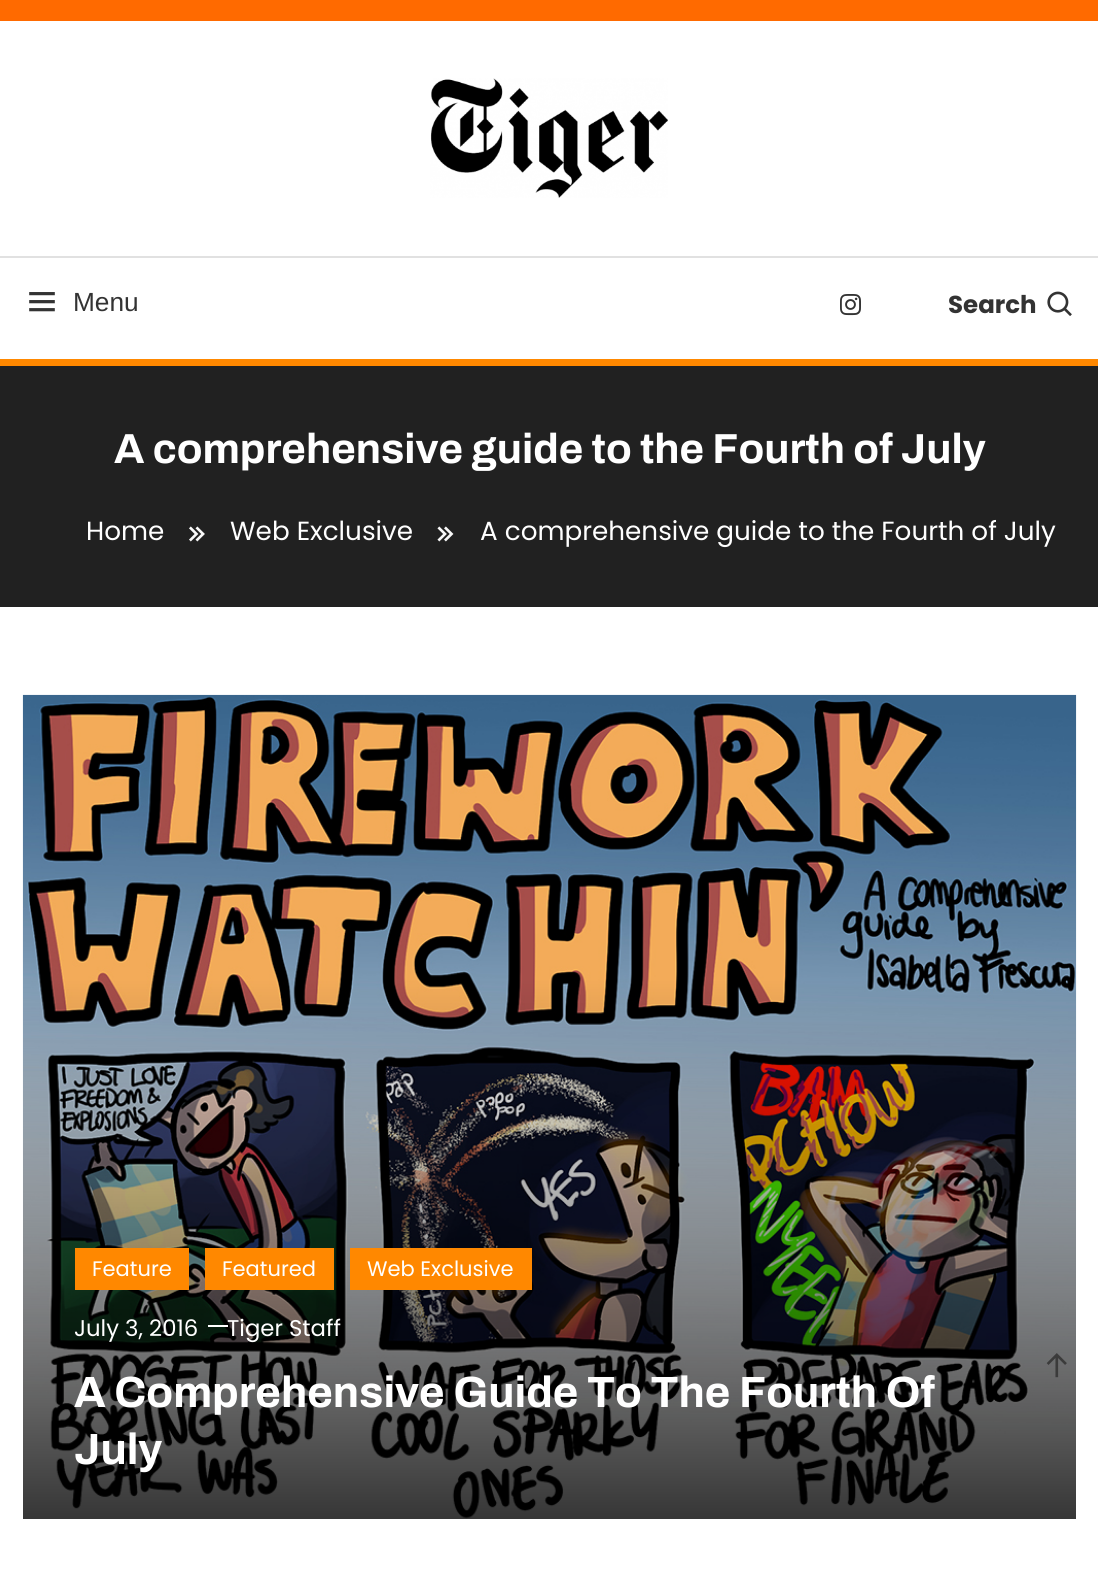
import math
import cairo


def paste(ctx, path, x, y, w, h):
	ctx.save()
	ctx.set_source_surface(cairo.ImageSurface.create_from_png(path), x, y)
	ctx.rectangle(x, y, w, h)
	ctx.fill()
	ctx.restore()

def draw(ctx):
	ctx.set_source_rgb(1, 1, 1)
	ctx.paint()
	ctx.set_source_rgb(1, 0.416, 0)
	ctx.rectangle(0, 0, 1098, 21)
	ctx.fill()
	paste(ctx, 'media/1.png', 430, 78, 238, 120)
	ctx.set_source_rgb(0.882, 0.882, 0.882)
	ctx.rectangle(0, 256, 1098, 2)
	ctx.fill()
	paste(ctx, 'media/2.png', 29, 292, 26, 20)
	ctx.select_font_face('Liberation Sans')
	ctx.set_font_size(26.25)
	ctx.set_source_rgb(0.2, 0.2, 0.2)
	ctx.move_to(73, 311)
	ctx.show_text('Menu')
	paste(ctx, 'media/3.png', 840, 294, 21, 22)
	ctx.select_font_face('Poppins', cairo.FONT_SLANT_NORMAL, cairo.FONT_WEIGHT_BOLD)
	ctx.set_font_size(24.5)
	ctx.move_to(948, 313)
	ctx.show_text('Search')
	paste(ctx, 'media/4.png', 1047, 291, 25, 25)
	ctx.set_source_rgb(0.129, 0.129, 0.129)
	ctx.rectangle(0, 366, 1098, 241)
	ctx.fill()
	ctx.set_source_rgb(1, 0.533, 0)
	ctx.rectangle(0, 359, 1098, 7)
	ctx.fill()
	ctx.select_font_face('Archivo', cairo.FONT_SLANT_NORMAL, cairo.FONT_WEIGHT_BOLD)
	ctx.set_font_size(42)
	ctx.set_source_rgb(1, 1, 1)
	ctx.move_to(114, 463)
	ctx.show_text('A comprehensive guide to the Fourth of July')
	ctx.select_font_face('Poppins')
	ctx.set_font_size(26.25)
	ctx.move_to(86, 540)
	ctx.show_text('Home')
	paste(ctx, 'media/5.png', 189, 526, 16, 16)
	ctx.move_to(230, 540)
	ctx.show_text('Web Exclusive')
	paste(ctx, 'media/6.png', 437, 526, 17, 16)
	ctx.move_to(480, 540)
	ctx.show_text('A comprehensive guide to the Fourth of July')
	paste(ctx, 'media/7.png', 22, 694, 1055, 825)
	ctx.set_source_rgb(1, 0.533, 0)
	ctx.rectangle(75, 1248, 114, 42)
	ctx.fill()
	ctx.set_font_size(21)
	ctx.set_source_rgb(1, 1, 1)
	ctx.move_to(92, 1276)
	ctx.show_text('Feature')
	ctx.set_source_rgb(1, 0.533, 0)
	ctx.rectangle(205, 1248, 129, 42)
	ctx.fill()
	ctx.set_source_rgb(1, 1, 1)
	ctx.move_to(222, 1276)
	ctx.show_text('Featured')
	ctx.set_source_rgb(1, 0.533, 0)
	ctx.rectangle(350, 1248, 182, 42)
	ctx.fill()
	ctx.set_source_rgb(1, 1, 1)
	ctx.move_to(367, 1276)
	ctx.show_text('Web Exclusive')
	ctx.set_font_size(22.75)
	ctx.move_to(74, 1336)
	ctx.show_text('July 3, 2016')
	ctx.rectangle(208, 1325, 20, 2)
	ctx.fill()
	ctx.move_to(227, 1336)
	ctx.show_text('Tiger Staff')
	ctx.select_font_face('Archivo', cairo.FONT_SLANT_NORMAL, cairo.FONT_WEIGHT_BOLD)
	ctx.set_font_size(43.75)
	ctx.move_to(74, 1407)
	ctx.show_text('A Comprehensive Guide To The Fourth Of')
	ctx.move_to(74, 1464)
	ctx.show_text('July')
	paste(ctx, 'media/8.png', 1046, 1353, 21, 25)


surface = cairo.ImageSurface(cairo.FORMAT_RGB24, 1098, 1581)
ctx = cairo.Context(surface)
options = cairo.FontOptions()
options.set_hint_metrics(cairo.HINT_METRICS_OFF)
options.set_hint_style(cairo.HINT_STYLE_NONE)
ctx.set_font_options(options)
ctx.set_miter_limit(4)
draw(ctx)
surface.write_to_png('image.png')
